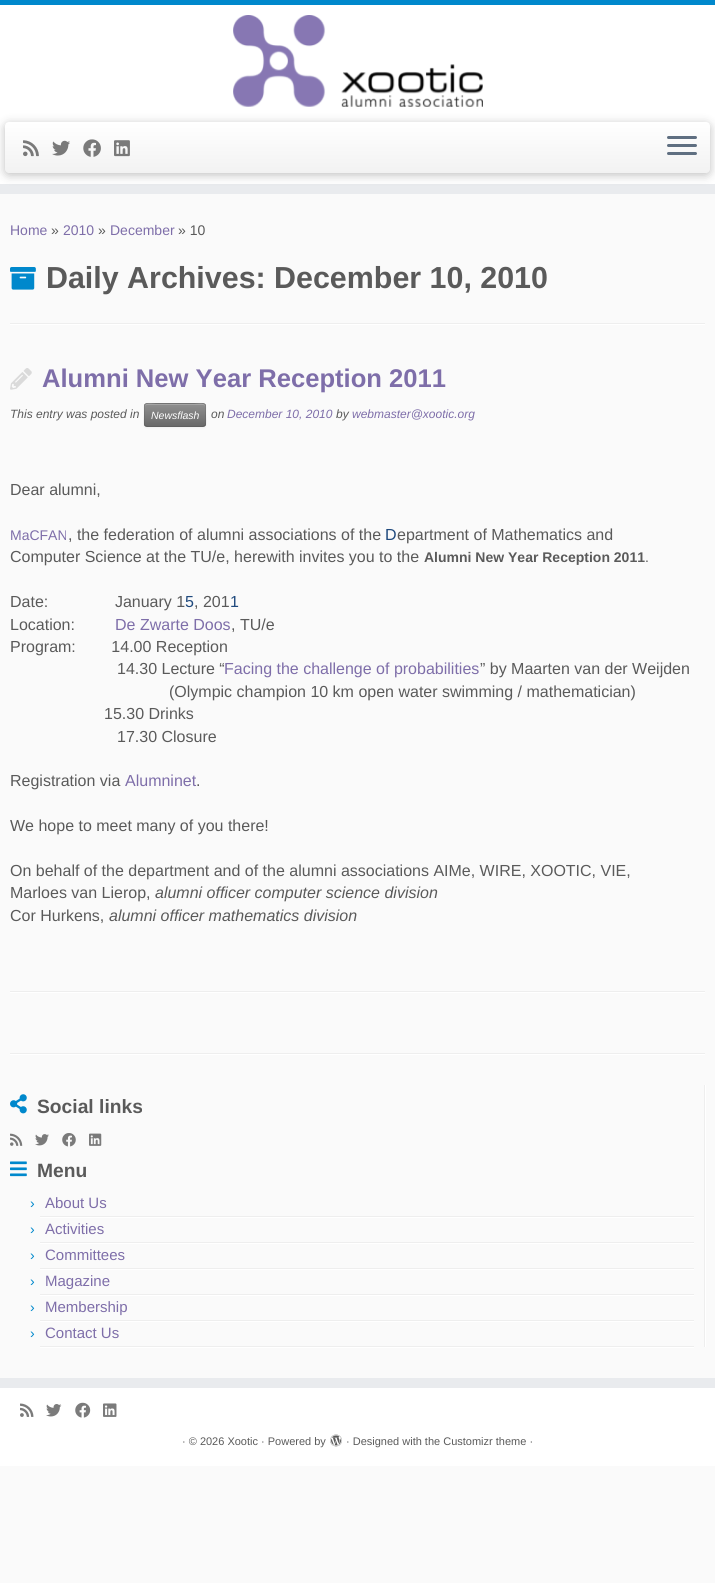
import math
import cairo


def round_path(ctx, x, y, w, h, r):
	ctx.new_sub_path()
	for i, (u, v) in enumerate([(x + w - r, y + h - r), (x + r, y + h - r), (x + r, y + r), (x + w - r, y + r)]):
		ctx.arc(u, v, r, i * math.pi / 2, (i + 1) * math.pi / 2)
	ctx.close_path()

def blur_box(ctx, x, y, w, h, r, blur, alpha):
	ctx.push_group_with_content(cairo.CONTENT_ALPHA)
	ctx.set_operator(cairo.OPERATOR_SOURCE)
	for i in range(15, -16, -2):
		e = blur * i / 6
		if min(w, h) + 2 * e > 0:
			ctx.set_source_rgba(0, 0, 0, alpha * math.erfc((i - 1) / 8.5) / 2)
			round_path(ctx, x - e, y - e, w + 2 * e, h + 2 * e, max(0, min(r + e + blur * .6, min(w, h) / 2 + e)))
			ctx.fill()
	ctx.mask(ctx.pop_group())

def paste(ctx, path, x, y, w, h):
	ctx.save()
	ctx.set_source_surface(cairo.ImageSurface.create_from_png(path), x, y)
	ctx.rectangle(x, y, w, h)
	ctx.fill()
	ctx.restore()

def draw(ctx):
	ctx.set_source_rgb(0.98, 0.98, 0.98)
	ctx.paint()
	ctx.set_source_rgb(1, 1, 1)
	ctx.rectangle(0, 5, 715, 179)
	ctx.fill()
	ctx.set_source_rgb(0, 0.533, 0.8)
	ctx.rectangle(0, 0, 715, 5)
	ctx.fill()
	ctx.set_source_rgb(0.914, 0.918, 0.933)
	ctx.rectangle(0, 184, 715, 10)
	ctx.fill()
	paste(ctx, 'media/1.png', 233, 15, 250, 92)
	ctx.set_source_rgb(0, 0, 0)
	blur_box(ctx, 5, 124, 705, 51, 4, 5, 0.25)
	gradient = cairo.LinearGradient(358, 122, 358, 173)
	gradient.add_color_stop_rgba(0, 1, 1, 1, 1)
	gradient.add_color_stop_rgba(1, 0.949, 0.949, 0.949, 1)
	ctx.set_source(gradient)
	round_path(ctx, 5, 122, 705, 51, 4)
	ctx.fill()
	paste(ctx, 'media/2.png', 23, 140, 16, 17)
	paste(ctx, 'media/3.png', 52, 140, 18, 16)
	paste(ctx, 'media/4.png', 83, 139, 18, 18)
	paste(ctx, 'media/5.png', 114, 140, 16, 17)
	ctx.set_source_rgb(0.373, 0.435, 0.506)
	round_path(ctx, 667, 136, 30, 3, 1.5)
	ctx.fill()
	round_path(ctx, 667, 144, 30, 3, 1.5)
	ctx.fill()
	round_path(ctx, 667, 152, 30, 3, 1.5)
	ctx.fill()
	ctx.select_font_face('Liberation Sans')
	ctx.set_font_size(14)
	ctx.set_source_rgb(0.494, 0.431, 0.663)
	ctx.move_to(10, 235)
	ctx.show_text('Home')
	ctx.set_source_rgb(0.353, 0.353, 0.353)
	ctx.move_to(51, 235)
	ctx.show_text('»')
	ctx.set_source_rgb(0.494, 0.431, 0.663)
	ctx.move_to(63, 235)
	ctx.show_text('2010')
	ctx.set_source_rgb(0.353, 0.353, 0.353)
	ctx.move_to(98, 235)
	ctx.show_text('»')
	ctx.set_source_rgb(0.494, 0.431, 0.663)
	ctx.move_to(110, 235)
	ctx.show_text('December')
	ctx.set_source_rgb(0.353, 0.353, 0.353)
	ctx.move_to(178, 235)
	ctx.show_text('» 10')
	paste(ctx, 'media/6.png', 10, 267, 26, 23)
	ctx.select_font_face('Liberation Sans', cairo.FONT_SLANT_NORMAL, cairo.FONT_WEIGHT_BOLD)
	ctx.set_font_size(30.4)
	ctx.move_to(46, 288)
	ctx.show_text('Daily Archives: December 10, 2010')
	ctx.set_source_rgb(0.933, 0.933, 0.933)
	ctx.rectangle(10, 323, 695, 1)
	ctx.fill()
	ctx.set_source_rgb(1, 1, 1)
	ctx.rectangle(10, 324, 695, 1)
	ctx.fill()
	paste(ctx, 'media/7.png', 10, 368, 22, 22)
	ctx.set_font_size(25.6)
	ctx.set_source_rgb(0.494, 0.431, 0.663)
	ctx.move_to(42, 387)
	ctx.show_text('Alumni New Year Reception 2011')
	ctx.select_font_face('Liberation Sans', cairo.FONT_SLANT_ITALIC)
	ctx.set_font_size(12)
	ctx.set_source_rgb(0.353, 0.353, 0.353)
	ctx.move_to(10, 418)
	ctx.show_text('This entry was posted in')
	ctx.set_source_rgb(0, 0, 0)
	blur_box(ctx, 144, 404, 62, 24, 3, 1, 0.05)
	ctx.set_source_rgb(0.502, 0.502, 0.502)
	round_path(ctx, 144, 403, 62, 24, 3)
	ctx.fill()
	ctx.save()
	round_path(ctx, 144, 403, 62, 24, 3)
	ctx.clip()
	gradient = cairo.LinearGradient(175, 404, 175, 426)
	gradient.add_color_stop_rgba(0, 0.561, 0.561, 0.561, 1)
	gradient.add_color_stop_rgba(1, 0.412, 0.412, 0.412, 1)
	ctx.set_source(gradient)
	ctx.rectangle(144, 404, 62, 22)
	ctx.fill()
	ctx.restore()
	ctx.set_source_rgba(1, 1, 1, 0.2)
	ctx.new_path()
	ctx.move_to(147, 405)
	ctx.line_to(203, 405)
	ctx.curve_to(204, 405, 205, 406, 205, 407)
	ctx.curve_to(205, 401, 197, 404, 194, 404)
	ctx.line_to(156, 404)
	ctx.curve_to(153, 404, 145, 401, 145, 407)
	ctx.curve_to(145, 406, 146, 405, 147, 405)
	ctx.close_path()
	ctx.fill()
	ctx.new_path()
	ctx.move_to(205, 426)
	ctx.line_to(203, 426.5)
	ctx.line_to(147, 426.5)
	ctx.line_to(145, 426)
	ctx.set_source_rgba(0, 0, 0, 0.25)
	ctx.set_line_width(1)
	ctx.stroke()
	ctx.new_path()
	ctx.move_to(145, 426)
	ctx.curve_to(143.5, 424, 144.5, 417, 144.5, 415)
	ctx.curve_to(144.5, 401.5, 142.5, 403.5, 156.5, 403.5)
	ctx.line_to(193.5, 403.5)
	ctx.curve_to(207.5, 403.5, 205.5, 401.5, 205.5, 415)
	ctx.curve_to(205.5, 417, 206.5, 424, 205, 426)
	ctx.set_source_rgba(0, 0, 0, 0.1)
	ctx.stroke()
	ctx.set_font_size(10.5)
	ctx.set_source_rgb(1, 1, 1)
	ctx.move_to(151, 419)
	ctx.show_text('Newsflash')
	ctx.set_font_size(12)
	ctx.set_source_rgb(0.353, 0.353, 0.353)
	ctx.move_to(211, 418)
	ctx.show_text('on')
	ctx.set_source_rgb(0.494, 0.431, 0.663)
	ctx.move_to(227, 418)
	ctx.show_text('December 10, 2010')
	ctx.set_source_rgb(0.353, 0.353, 0.353)
	ctx.move_to(336, 418)
	ctx.show_text('by')
	ctx.set_source_rgb(0.494, 0.431, 0.663)
	ctx.move_to(352, 418)
	ctx.show_text('webmaster@xootic.org')
	ctx.select_font_face('Liberation Sans')
	ctx.set_font_size(16)
	ctx.set_source_rgb(0.353, 0.353, 0.353)
	ctx.move_to(10, 495)
	ctx.show_text('Dear alumni,')
	ctx.set_font_size(14)
	ctx.set_source_rgb(0.494, 0.431, 0.663)
	ctx.move_to(10, 540)
	ctx.show_text('MaCFAN')
	ctx.set_font_size(16)
	ctx.set_source_rgb(0.353, 0.353, 0.353)
	ctx.move_to(68, 540)
	ctx.show_text(', the federation of alumni associations of the')
	ctx.set_source_rgb(0.122, 0.286, 0.49)
	ctx.move_to(385, 540)
	ctx.show_text('D')
	ctx.set_source_rgb(0.353, 0.353, 0.353)
	ctx.move_to(397, 540)
	ctx.show_text('epartment of Mathematics and')
	ctx.move_to(10, 562)
	ctx.show_text('Computer Science at the TU/e, herewith invites you to the')
	ctx.select_font_face('Liberation Sans', cairo.FONT_SLANT_NORMAL, cairo.FONT_WEIGHT_BOLD)
	ctx.set_font_size(14)
	ctx.move_to(424, 562)
	ctx.show_text('Alumni New Year Reception 2011')
	ctx.select_font_face('Liberation Sans')
	ctx.move_to(645, 562)
	ctx.show_text('.')
	ctx.set_font_size(16)
	ctx.move_to(10, 607)
	ctx.show_text('Date:               January 1')
	ctx.set_source_rgb(0.122, 0.286, 0.49)
	ctx.move_to(185, 607)
	ctx.show_text('5')
	ctx.set_source_rgb(0.353, 0.353, 0.353)
	ctx.move_to(194, 607)
	ctx.show_text(', 201')
	ctx.set_source_rgb(0.122, 0.286, 0.49)
	ctx.move_to(230, 607)
	ctx.show_text('1')
	ctx.set_source_rgb(0.353, 0.353, 0.353)
	ctx.move_to(10, 630)
	ctx.show_text('Location:')
	ctx.set_source_rgb(0.494, 0.431, 0.663)
	ctx.move_to(115, 630)
	ctx.show_text('De Zwarte Doos')
	ctx.set_source_rgb(0.353, 0.353, 0.353)
	for x, y, s in [
		(231, 630, ', TU/e'),
		(10, 652, 'Program:        14.00 Reception'),
		(117, 674, '14.30 Lecture “'),
	]:
		ctx.move_to(x, y)
		ctx.show_text(s)
	ctx.set_source_rgb(0.494, 0.431, 0.663)
	ctx.move_to(224, 674)
	ctx.show_text('Facing the challenge of probabilities')
	ctx.set_source_rgb(0.353, 0.353, 0.353)
	for x, y, s in [
		(480, 674, '” by Maarten van der Weijden'),
		(169, 697, '(Olympic champion 10 km open water swimming / mathematician)'),
		(104, 719, '15.30 Drinks'),
		(117, 742, '17.30 Closure'),
		(10, 786, 'Registration via'),
	]:
		ctx.move_to(x, y)
		ctx.show_text(s)
	ctx.set_source_rgb(0.494, 0.431, 0.663)
	ctx.move_to(125, 786)
	ctx.show_text('Alumninet')
	ctx.set_source_rgb(0.353, 0.353, 0.353)
	for x, y, s in [
		(196, 786, '.'),
		(10, 831, 'We hope to meet many of you there!'),
		(10, 876, 'On behalf of the department and of the alumni associations AIMe, WIRE, XOOTIC, VIE,'),
		(10, 898, 'Marloes van Lierop,'),
	]:
		ctx.move_to(x, y)
		ctx.show_text(s)
	ctx.select_font_face('Liberation Sans', cairo.FONT_SLANT_ITALIC)
	ctx.move_to(155, 898)
	ctx.show_text('alumni officer computer science division')
	ctx.select_font_face('Liberation Sans')
	ctx.move_to(10, 921)
	ctx.show_text('Cor Hurkens,')
	ctx.select_font_face('Liberation Sans', cairo.FONT_SLANT_ITALIC)
	ctx.move_to(109, 921)
	ctx.show_text('alumni officer mathematics division')
	ctx.set_source_rgb(0.933, 0.933, 0.933)
	ctx.rectangle(10, 991, 695, 1)
	ctx.fill()
	ctx.set_source_rgb(1, 1, 1)
	ctx.rectangle(10, 992, 695, 1)
	ctx.fill()
	ctx.set_source_rgb(0.933, 0.933, 0.933)
	ctx.rectangle(10, 1053, 695, 1)
	ctx.fill()
	ctx.set_source_rgb(1, 1, 1)
	ctx.rectangle(10, 1054, 695, 1)
	ctx.fill()
	ctx.set_source_rgb(0.933, 0.933, 0.933)
	ctx.rectangle(704, 1085, 1, 262)
	ctx.fill()
	paste(ctx, 'media/8.png', 10, 1094, 17, 20)
	ctx.select_font_face('Liberation Sans', cairo.FONT_SLANT_NORMAL, cairo.FONT_WEIGHT_BOLD)
	ctx.set_font_size(19.25)
	ctx.set_source_rgb(0.353, 0.353, 0.353)
	ctx.move_to(37, 1113)
	ctx.show_text('Social links')
	paste(ctx, 'media/9.png', 10, 1133, 13, 13)
	paste(ctx, 'media/10.png', 35, 1134, 14, 12)
	paste(ctx, 'media/11.png', 62, 1133, 14, 14)
	paste(ctx, 'media/12.png', 89, 1133, 13, 13)
	ctx.set_source_rgb(1, 1, 1)
	ctx.rectangle(705, 1085, 1, 262)
	ctx.fill()
	paste(ctx, 'media/13.png', 10, 1161, 17, 16)
	ctx.set_source_rgb(0.353, 0.353, 0.353)
	ctx.move_to(37, 1177)
	ctx.show_text('Menu')
	ctx.set_source_rgb(0.933, 0.933, 0.933)
	ctx.rectangle(40, 1216, 654, 1)
	ctx.fill()
	ctx.select_font_face('Liberation Sans')
	ctx.set_font_size(14)
	ctx.set_source_rgb(0, 0.533, 0.8)
	ctx.move_to(30, 1208)
	ctx.show_text('›')
	ctx.set_font_size(15)
	ctx.set_source_rgb(0.494, 0.431, 0.663)
	ctx.move_to(45, 1208)
	ctx.show_text('About Us')
	ctx.set_source_rgb(1, 1, 1)
	ctx.rectangle(40, 1217, 654, 1)
	ctx.fill()
	ctx.set_source_rgb(0.933, 0.933, 0.933)
	ctx.rectangle(40, 1242, 654, 1)
	ctx.fill()
	ctx.set_font_size(14)
	ctx.set_source_rgb(0, 0.533, 0.8)
	ctx.move_to(30, 1234)
	ctx.show_text('›')
	ctx.set_font_size(15)
	ctx.set_source_rgb(0.494, 0.431, 0.663)
	ctx.move_to(45, 1234)
	ctx.show_text('Activities')
	ctx.set_source_rgb(1, 1, 1)
	ctx.rectangle(40, 1243, 654, 1)
	ctx.fill()
	ctx.set_source_rgb(0.933, 0.933, 0.933)
	ctx.rectangle(40, 1268, 654, 1)
	ctx.fill()
	ctx.set_font_size(14)
	ctx.set_source_rgb(0, 0.533, 0.8)
	ctx.move_to(30, 1260)
	ctx.show_text('›')
	ctx.set_font_size(15)
	ctx.set_source_rgb(0.494, 0.431, 0.663)
	ctx.move_to(45, 1260)
	ctx.show_text('Committees')
	ctx.set_source_rgb(1, 1, 1)
	ctx.rectangle(40, 1269, 654, 1)
	ctx.fill()
	ctx.set_source_rgb(0.933, 0.933, 0.933)
	ctx.rectangle(40, 1294, 654, 1)
	ctx.fill()
	ctx.set_font_size(14)
	ctx.set_source_rgb(0, 0.533, 0.8)
	ctx.move_to(30, 1286)
	ctx.show_text('›')
	ctx.set_font_size(15)
	ctx.set_source_rgb(0.494, 0.431, 0.663)
	ctx.move_to(45, 1286)
	ctx.show_text('Magazine')
	ctx.set_source_rgb(1, 1, 1)
	ctx.rectangle(40, 1295, 654, 1)
	ctx.fill()
	ctx.set_source_rgb(0.933, 0.933, 0.933)
	ctx.rectangle(40, 1320, 654, 1)
	ctx.fill()
	ctx.set_font_size(14)
	ctx.set_source_rgb(0, 0.533, 0.8)
	ctx.move_to(30, 1312)
	ctx.show_text('›')
	ctx.set_font_size(15)
	ctx.set_source_rgb(0.494, 0.431, 0.663)
	ctx.move_to(45, 1312)
	ctx.show_text('Membership')
	ctx.set_source_rgb(1, 1, 1)
	ctx.rectangle(40, 1321, 654, 1)
	ctx.fill()
	ctx.set_source_rgb(0.933, 0.933, 0.933)
	ctx.rectangle(40, 1346, 654, 1)
	ctx.fill()
	ctx.set_font_size(14)
	ctx.set_source_rgb(0, 0.533, 0.8)
	ctx.move_to(30, 1338)
	ctx.show_text('›')
	ctx.set_font_size(15)
	ctx.set_source_rgb(0.494, 0.431, 0.663)
	ctx.move_to(45, 1338)
	ctx.show_text('Contact Us')
	ctx.set_source_rgb(1, 1, 1)
	ctx.rectangle(40, 1347, 654, 1)
	ctx.fill()
	ctx.set_source_rgb(0.914, 0.918, 0.933)
	ctx.rectangle(0, 1378, 715, 10)
	ctx.fill()
	ctx.set_source_rgb(1, 1, 1)
	ctx.rectangle(0, 1388, 715, 78)
	ctx.fill()
	paste(ctx, 'media/14.png', 20, 1403, 14, 14)
	paste(ctx, 'media/15.png', 46, 1404, 16, 13)
	paste(ctx, 'media/16.png', 75, 1402, 16, 16)
	paste(ctx, 'media/17.png', 103, 1403, 14, 14)
	ctx.set_font_size(11)
	ctx.set_source_rgb(0.353, 0.353, 0.353)
	ctx.move_to(182, 1445)
	ctx.show_text('· © 2026 Xootic · Powered by')
	paste(ctx, 'media/18.png', 330, 1434, 12, 13)
	ctx.move_to(346, 1445)
	ctx.show_text('· Designed with the Customizr theme ·')


surface = cairo.ImageSurface(cairo.FORMAT_RGB24, 715, 1583)
ctx = cairo.Context(surface)
options = cairo.FontOptions()
options.set_hint_metrics(cairo.HINT_METRICS_OFF)
options.set_hint_style(cairo.HINT_STYLE_NONE)
ctx.set_font_options(options)
ctx.set_miter_limit(4)
draw(ctx)
surface.write_to_png('image.png')
